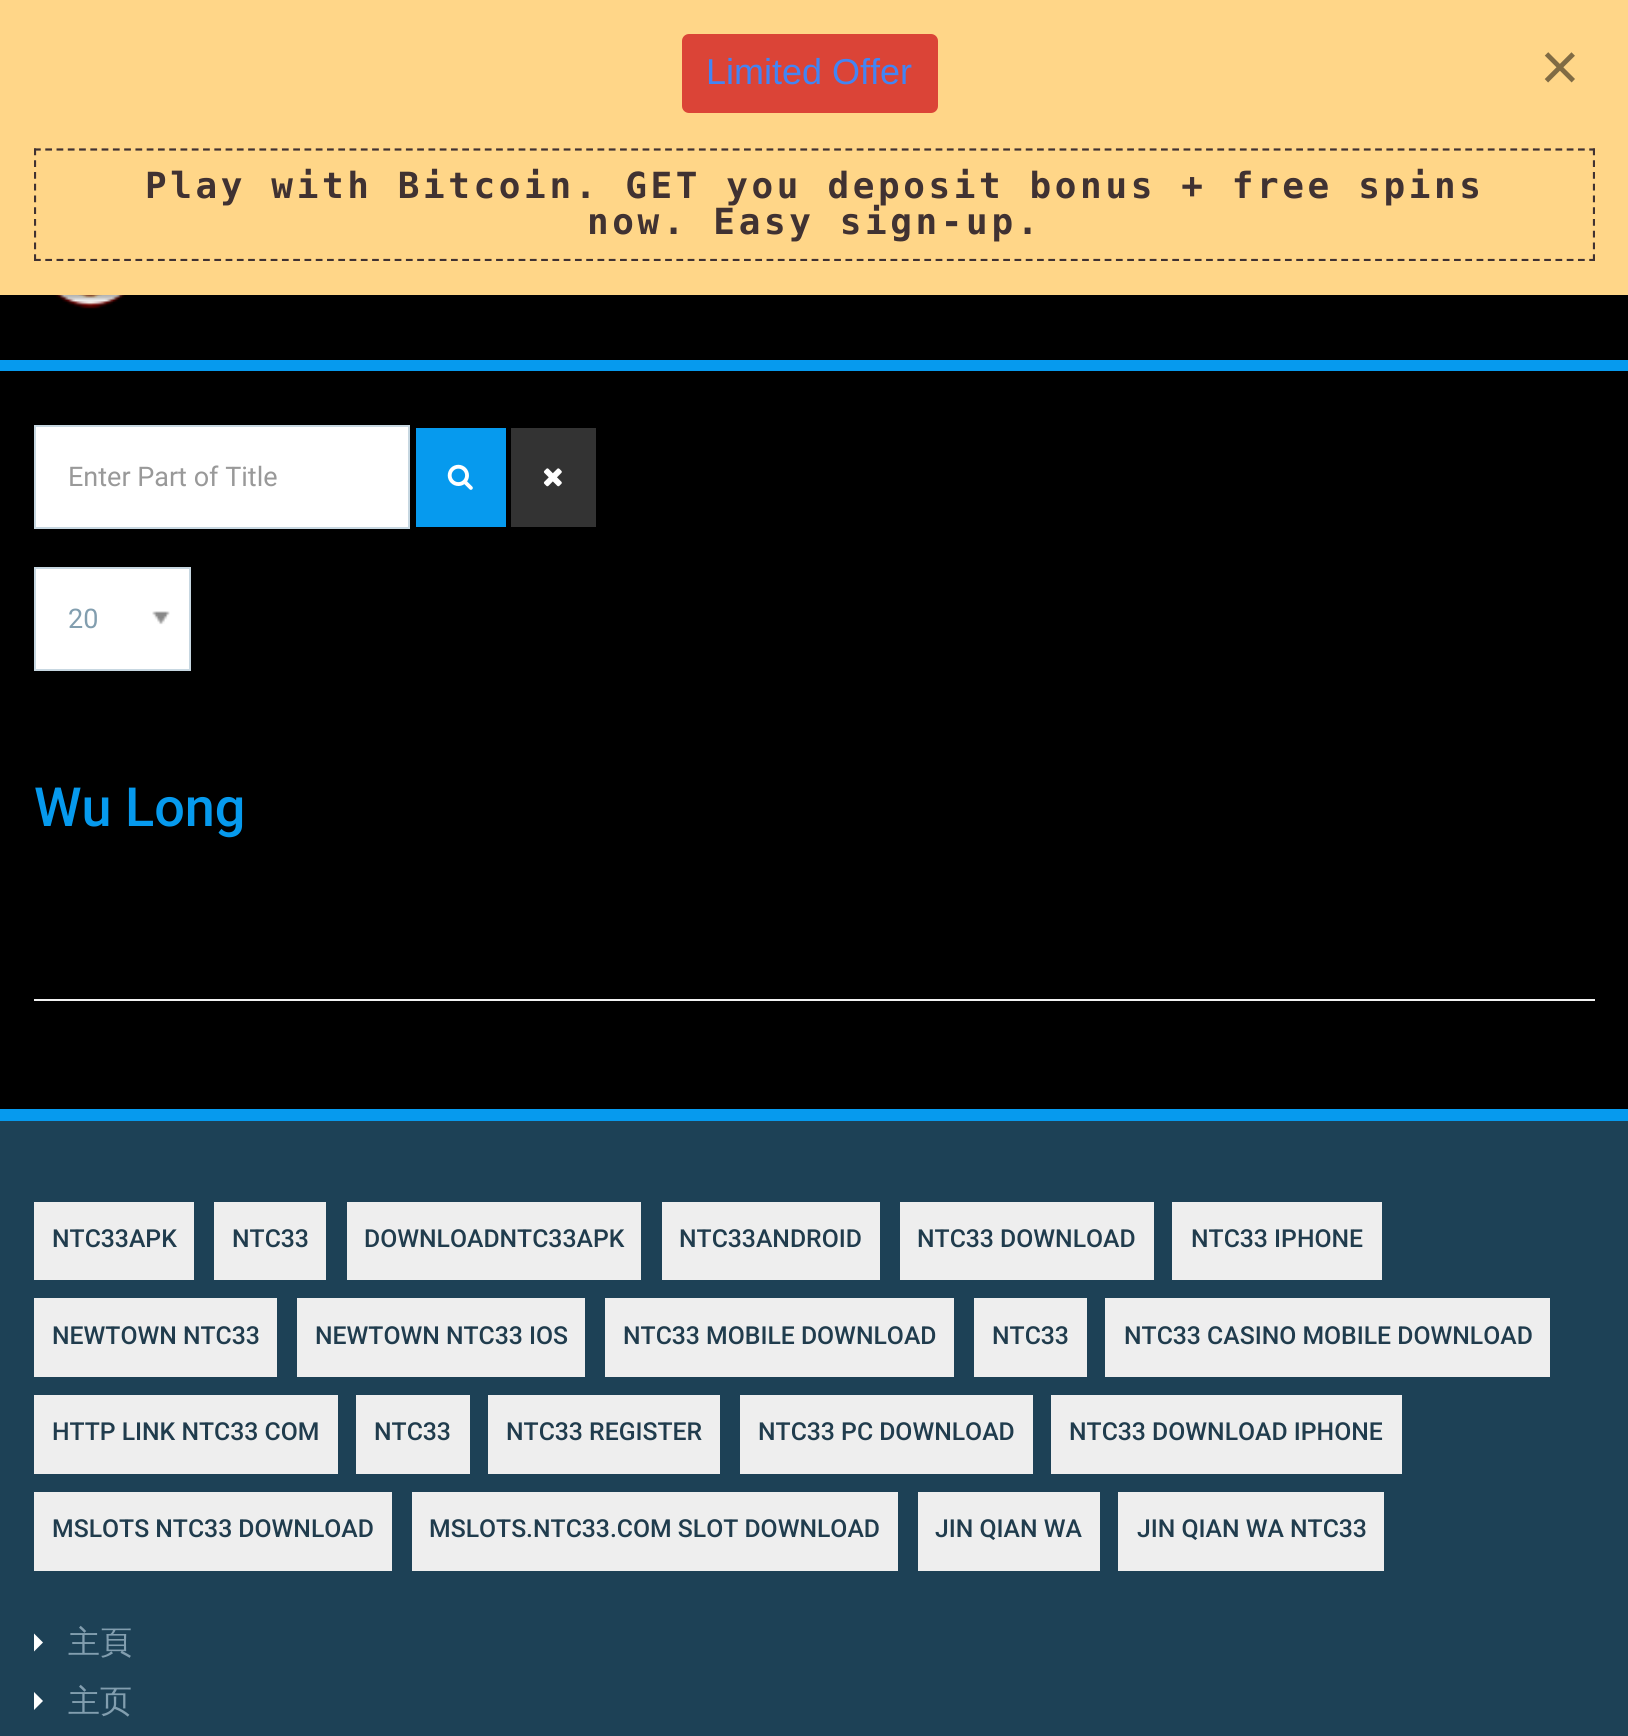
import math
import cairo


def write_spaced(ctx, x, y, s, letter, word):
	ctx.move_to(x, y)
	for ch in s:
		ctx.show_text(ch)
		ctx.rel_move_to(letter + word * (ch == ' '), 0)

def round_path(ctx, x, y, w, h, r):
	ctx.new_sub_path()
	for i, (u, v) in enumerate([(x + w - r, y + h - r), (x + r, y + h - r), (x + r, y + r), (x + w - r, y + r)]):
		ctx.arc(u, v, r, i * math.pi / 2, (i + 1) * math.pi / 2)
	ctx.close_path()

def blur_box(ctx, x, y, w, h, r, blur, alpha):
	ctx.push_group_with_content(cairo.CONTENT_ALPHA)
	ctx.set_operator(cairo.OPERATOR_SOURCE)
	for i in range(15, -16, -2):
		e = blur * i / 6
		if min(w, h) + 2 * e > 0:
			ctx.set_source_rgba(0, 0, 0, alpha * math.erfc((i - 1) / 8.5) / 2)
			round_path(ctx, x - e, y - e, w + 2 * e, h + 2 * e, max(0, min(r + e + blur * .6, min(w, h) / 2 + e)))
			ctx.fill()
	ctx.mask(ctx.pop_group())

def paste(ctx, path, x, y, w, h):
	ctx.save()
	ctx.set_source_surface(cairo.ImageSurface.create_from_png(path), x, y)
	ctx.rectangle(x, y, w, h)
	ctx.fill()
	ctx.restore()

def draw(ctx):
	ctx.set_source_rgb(0, 0, 0)
	ctx.paint()
	paste(ctx, 'media/1.png', 54, 295, 73, 14)
	ctx.set_source_rgb(0, 0, 0.004)
	blur_box(ctx, -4, -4, 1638, 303, 0, 2, 0.3)
	ctx.set_source_rgb(1, 0.839, 0.533)
	ctx.rectangle(0, 0, 1628, 295)
	ctx.fill()
	ctx.set_source_rgb(0.859, 0.267, 0.216)
	round_path(ctx, 682, 34, 256, 79, 7)
	ctx.fill()
	ctx.select_font_face('Liberation Sans')
	ctx.set_font_size(36)
	ctx.set_source_rgb(0.259, 0.522, 0.957)
	ctx.move_to(706, 84)
	ctx.show_text('Limited Offer')
	ctx.new_path()
	ctx.move_to(34, 149.5)
	ctx.line_to(1595, 149.5)
	ctx.set_source_rgb(0.251, 0.196, 0.196)
	ctx.set_line_width(2.2)
	ctx.set_dash([6.75, 4.52])
	ctx.stroke()
	ctx.save()
	ctx.rectangle(34, 34, 1561, 227)
	ctx.clip()
	ctx.new_path()
	ctx.move_to(1594, 148.5)
	ctx.line_to(1594, 261)
	ctx.set_dash([6.75, 5])
	ctx.stroke()
	ctx.new_path()
	ctx.move_to(34, 260)
	ctx.line_to(1595, 260)
	ctx.set_dash([6.75, 4.52])
	ctx.stroke()
	ctx.new_path()
	ctx.move_to(35, 148.5)
	ctx.line_to(35, 261)
	ctx.set_dash([6.75, 5])
	ctx.stroke()
	ctx.restore()
	ctx.select_font_face('DejaVu Sans Mono', cairo.FONT_SLANT_NORMAL, cairo.FONT_WEIGHT_BOLD)
	write_spaced(ctx, 145, 198, 'Play with Bitcoin. GET you deposit bonus + free spins', 3.6, 0)
	write_spaced(ctx, 587, 234, 'now. Easy sign-up.', 3.6, 0)
	ctx.select_font_face('Liberation Sans')
	ctx.set_font_size(68)
	ctx.set_source_rgb(0.502, 0.42, 0.267)
	ctx.move_to(1540, 90)
	ctx.show_text('×')
	ctx.set_source_rgb(0.027, 0.604, 0.933)
	ctx.rectangle(0, 360, 1628, 11)
	ctx.fill()
	ctx.set_source_rgb(1, 1, 1)
	ctx.rectangle(35, 426, 374, 102)
	ctx.fill_preserve()
	ctx.set_source_rgb(0.78, 0.843, 0.882)
	ctx.set_line_width(2)
	ctx.set_dash([])
	ctx.stroke()
	ctx.select_font_face('Roboto')
	ctx.set_font_size(27)
	ctx.set_source_rgb(0.6, 0.6, 0.6)
	ctx.move_to(68, 486)
	ctx.show_text('Enter Part of Title')
	ctx.set_source_rgb(0.027, 0.604, 0.933)
	ctx.rectangle(416, 428, 90, 99)
	ctx.fill()
	paste(ctx, 'media/2.png', 447, 464, 26, 26)
	ctx.set_source_rgb(0.2, 0.2, 0.2)
	ctx.rectangle(511, 428, 85, 99)
	ctx.fill()
	paste(ctx, 'media/3.png', 543, 468, 19, 19)
	ctx.set_source_rgb(1, 1, 1)
	ctx.rectangle(35, 568, 155, 102)
	ctx.fill_preserve()
	ctx.set_source_rgb(0.78, 0.843, 0.882)
	ctx.stroke()
	ctx.set_source_rgb(0.51, 0.62, 0.686)
	ctx.move_to(68, 628)
	ctx.show_text('20')
	paste(ctx, 'media/4.png', 152, 611, 18, 14)
	ctx.set_source_rgb(0.945, 0.945, 0.945)
	ctx.rectangle(34, 999, 1561, 2)
	ctx.fill()
	ctx.select_font_face('Roboto Medium')
	ctx.set_font_size(54)
	ctx.set_source_rgb(0.027, 0.604, 0.933)
	ctx.move_to(34, 826)
	ctx.show_text('Wu Long')
	ctx.set_source_rgb(0.114, 0.255, 0.337)
	ctx.rectangle(0, 1121, 1628, 615)
	ctx.fill()
	ctx.set_source_rgb(0.027, 0.604, 0.933)
	ctx.rectangle(0, 1109, 1628, 12)
	ctx.fill()
	ctx.set_source_rgb(0.933, 0.933, 0.933)
	ctx.rectangle(34, 1202, 160, 78)
	ctx.fill()
	ctx.set_font_size(24.75)
	ctx.set_source_rgb(0.125, 0.235, 0.302)
	ctx.move_to(52, 1247)
	ctx.show_text('NTC33APK')
	ctx.set_source_rgb(0.933, 0.933, 0.933)
	ctx.rectangle(214, 1202, 112, 78)
	ctx.fill()
	ctx.set_source_rgb(0.125, 0.235, 0.302)
	ctx.move_to(232, 1247)
	ctx.show_text('NTC33')
	ctx.set_source_rgb(0.933, 0.933, 0.933)
	ctx.rectangle(347, 1202, 294, 78)
	ctx.fill()
	ctx.set_source_rgb(0.125, 0.235, 0.302)
	ctx.move_to(364, 1247)
	ctx.show_text('DOWNLOADNTC33APK')
	ctx.set_source_rgb(0.933, 0.933, 0.933)
	ctx.rectangle(662, 1202, 218, 78)
	ctx.fill()
	ctx.set_source_rgb(0.125, 0.235, 0.302)
	ctx.move_to(679, 1247)
	ctx.show_text('NTC33ANDROID')
	ctx.set_source_rgb(0.933, 0.933, 0.933)
	ctx.rectangle(900, 1202, 254, 78)
	ctx.fill()
	ctx.set_source_rgb(0.125, 0.235, 0.302)
	ctx.move_to(917, 1247)
	ctx.show_text('NTC33 DOWNLOAD')
	ctx.set_source_rgb(0.933, 0.933, 0.933)
	ctx.rectangle(1172, 1202, 210, 78)
	ctx.fill()
	ctx.set_source_rgb(0.125, 0.235, 0.302)
	ctx.move_to(1191, 1247)
	ctx.show_text('NTC33 IPHONE')
	ctx.set_source_rgb(0.933, 0.933, 0.933)
	ctx.rectangle(34, 1298, 243, 79)
	ctx.fill()
	ctx.set_source_rgb(0.125, 0.235, 0.302)
	ctx.move_to(52, 1344)
	ctx.show_text('NEWTOWN NTC33')
	ctx.set_source_rgb(0.933, 0.933, 0.933)
	ctx.rectangle(297, 1298, 288, 79)
	ctx.fill()
	ctx.set_source_rgb(0.125, 0.235, 0.302)
	ctx.move_to(315, 1344)
	ctx.show_text('NEWTOWN NTC33 IOS')
	ctx.set_source_rgb(0.933, 0.933, 0.933)
	ctx.rectangle(605, 1298, 349, 79)
	ctx.fill()
	ctx.set_source_rgb(0.125, 0.235, 0.302)
	ctx.move_to(623, 1344)
	ctx.show_text('NTC33 MOBILE DOWNLOAD')
	ctx.set_source_rgb(0.933, 0.933, 0.933)
	ctx.rectangle(974, 1298, 113, 79)
	ctx.fill()
	ctx.set_source_rgb(0.125, 0.235, 0.302)
	ctx.move_to(992, 1344)
	ctx.show_text('NTC33')
	ctx.set_source_rgb(0.933, 0.933, 0.933)
	ctx.rectangle(1105, 1298, 445, 79)
	ctx.fill()
	ctx.set_source_rgb(0.125, 0.235, 0.302)
	ctx.move_to(1124, 1344)
	ctx.show_text('NTC33 CASINO MOBILE DOWNLOAD')
	ctx.set_source_rgb(0.933, 0.933, 0.933)
	ctx.rectangle(34, 1395, 304, 79)
	ctx.fill()
	ctx.set_source_rgb(0.125, 0.235, 0.302)
	ctx.move_to(52, 1440)
	ctx.show_text('HTTP LINK NTC33 COM')
	ctx.set_source_rgb(0.933, 0.933, 0.933)
	ctx.rectangle(356, 1395, 114, 79)
	ctx.fill()
	ctx.set_source_rgb(0.125, 0.235, 0.302)
	ctx.move_to(374, 1440)
	ctx.show_text('NTC33')
	ctx.set_source_rgb(0.933, 0.933, 0.933)
	ctx.rectangle(488, 1395, 232, 79)
	ctx.fill()
	ctx.set_source_rgb(0.125, 0.235, 0.302)
	ctx.move_to(506, 1440)
	ctx.show_text('NTC33 REGISTER')
	ctx.set_source_rgb(0.933, 0.933, 0.933)
	ctx.rectangle(740, 1395, 293, 79)
	ctx.fill()
	ctx.set_source_rgb(0.125, 0.235, 0.302)
	ctx.move_to(758, 1440)
	ctx.show_text('NTC33 PC DOWNLOAD')
	ctx.set_source_rgb(0.933, 0.933, 0.933)
	ctx.rectangle(1051, 1395, 351, 79)
	ctx.fill()
	ctx.set_source_rgb(0.125, 0.235, 0.302)
	ctx.move_to(1069, 1440)
	ctx.show_text('NTC33 DOWNLOAD IPHONE')
	ctx.set_source_rgb(0.933, 0.933, 0.933)
	ctx.rectangle(34, 1492, 358, 79)
	ctx.fill()
	ctx.set_source_rgb(0.125, 0.235, 0.302)
	ctx.move_to(52, 1537)
	ctx.show_text('MSLOTS NTC33 DOWNLOAD')
	ctx.set_source_rgb(0.933, 0.933, 0.933)
	ctx.rectangle(412, 1492, 486, 79)
	ctx.fill()
	ctx.set_source_rgb(0.125, 0.235, 0.302)
	ctx.move_to(429, 1537)
	ctx.show_text('MSLOTS.NTC33.COM SLOT DOWNLOAD')
	ctx.set_source_rgb(0.933, 0.933, 0.933)
	ctx.rectangle(918, 1492, 182, 79)
	ctx.fill()
	ctx.set_source_rgb(0.125, 0.235, 0.302)
	ctx.move_to(935, 1537)
	ctx.show_text('JIN QIAN WA')
	ctx.set_source_rgb(0.933, 0.933, 0.933)
	ctx.rectangle(1118, 1492, 266, 79)
	ctx.fill()
	ctx.set_source_rgb(0.125, 0.235, 0.302)
	ctx.move_to(1137, 1537)
	ctx.show_text('JIN QIAN WA NTC33')
	ctx.set_source_rgb(1, 1, 1)
	ctx.new_path()
	ctx.move_to(34, 1651.5)
	ctx.line_to(34, 1633.5)
	ctx.line_to(43, 1642.5)
	ctx.close_path()
	ctx.fill()
	ctx.select_font_face('WenQuanYi Zen Hei Medium')
	ctx.set_font_size(32)
	ctx.set_source_rgb(0.51, 0.62, 0.686)
	ctx.move_to(68, 1653)
	ctx.show_text('主頁')
	ctx.set_source_rgb(1, 1, 1)
	ctx.new_path()
	ctx.move_to(34, 1710)
	ctx.line_to(34, 1692)
	ctx.line_to(43, 1701)
	ctx.close_path()
	ctx.fill()
	ctx.set_source_rgb(0.51, 0.62, 0.686)
	ctx.move_to(68, 1712)
	ctx.show_text('主页')


surface = cairo.ImageSurface(cairo.FORMAT_RGB24, 1628, 1736)
ctx = cairo.Context(surface)
options = cairo.FontOptions()
options.set_hint_metrics(cairo.HINT_METRICS_OFF)
options.set_hint_style(cairo.HINT_STYLE_NONE)
ctx.set_font_options(options)
ctx.set_miter_limit(4)
draw(ctx)
surface.write_to_png('image.png')
